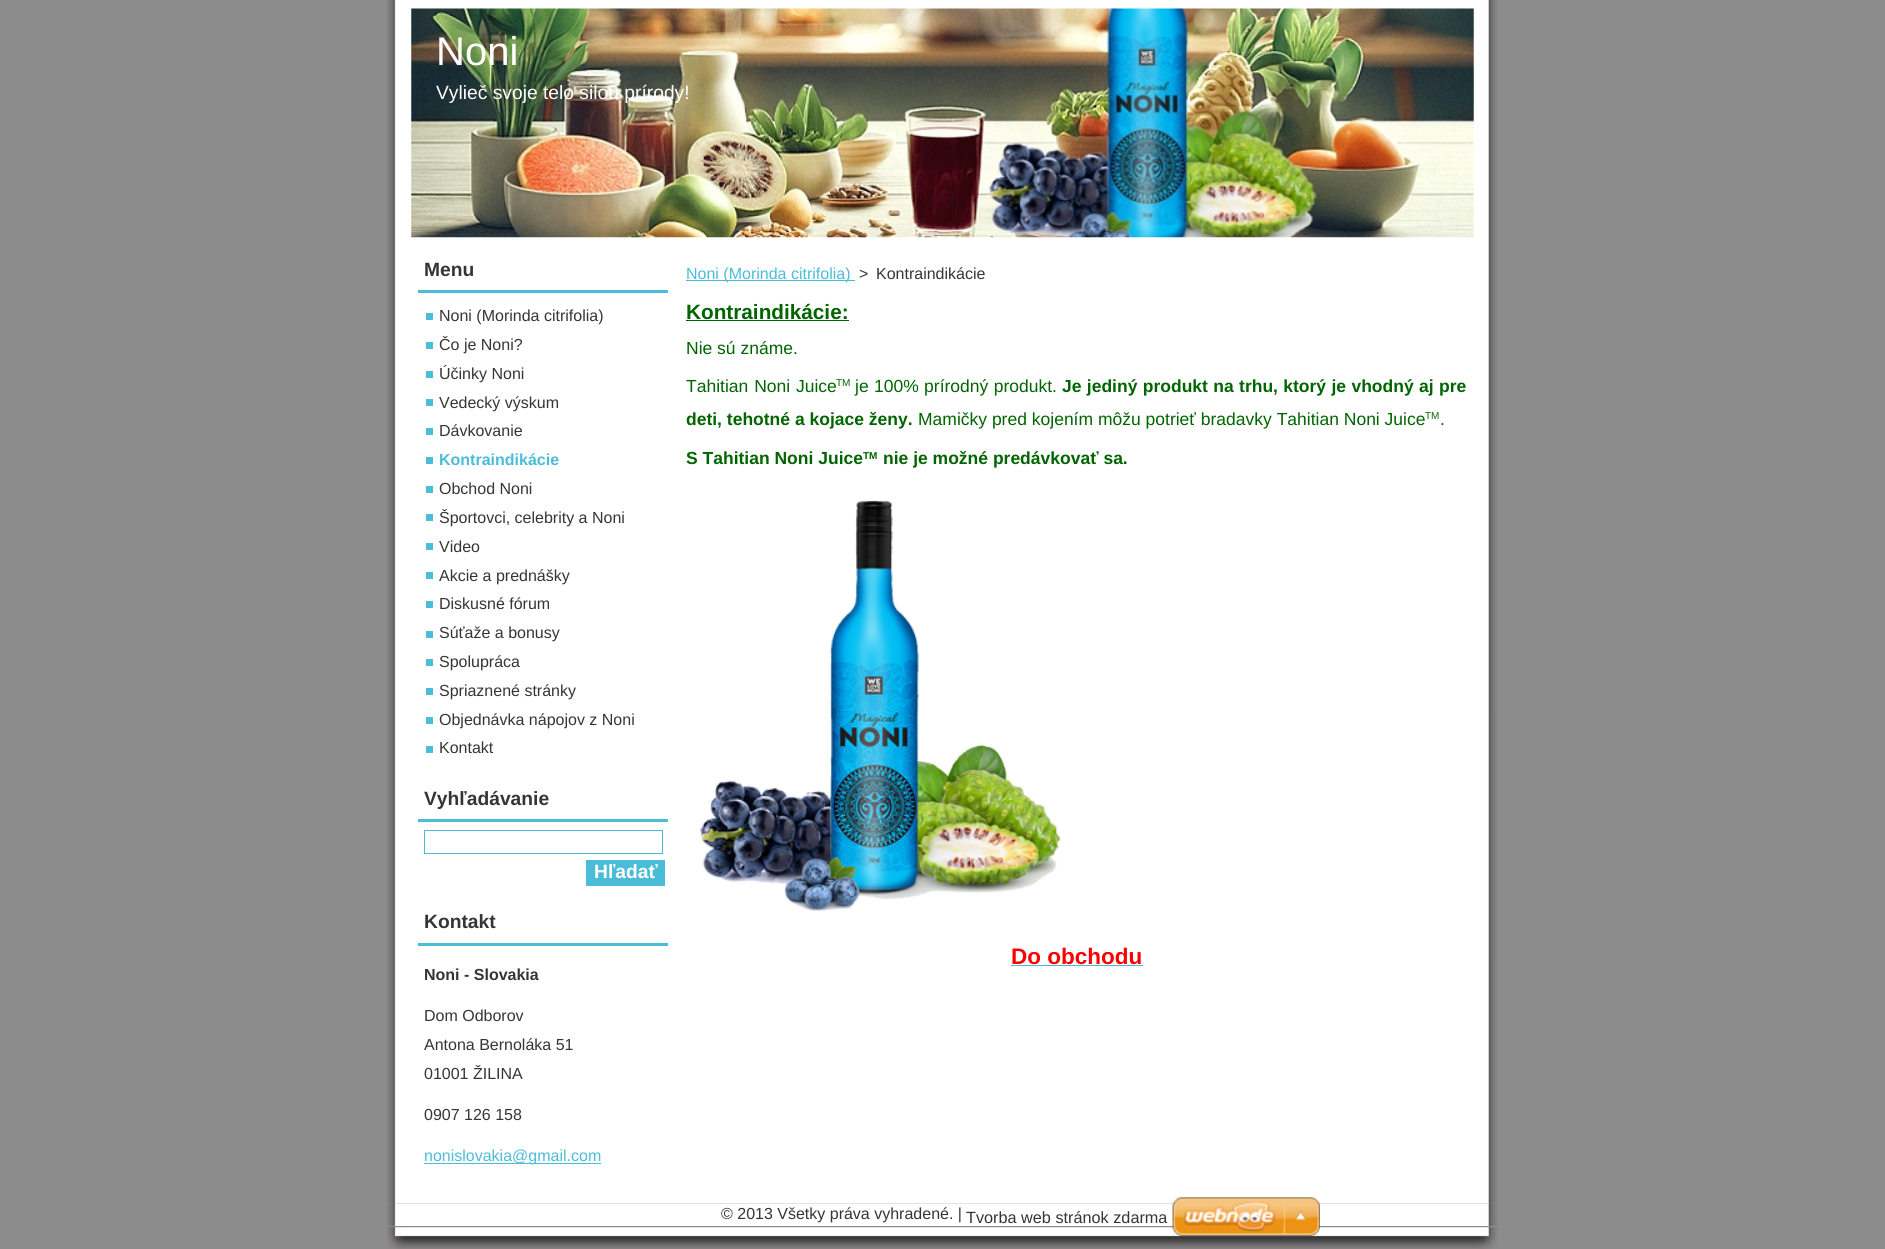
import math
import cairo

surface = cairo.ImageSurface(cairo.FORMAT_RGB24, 1885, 1249)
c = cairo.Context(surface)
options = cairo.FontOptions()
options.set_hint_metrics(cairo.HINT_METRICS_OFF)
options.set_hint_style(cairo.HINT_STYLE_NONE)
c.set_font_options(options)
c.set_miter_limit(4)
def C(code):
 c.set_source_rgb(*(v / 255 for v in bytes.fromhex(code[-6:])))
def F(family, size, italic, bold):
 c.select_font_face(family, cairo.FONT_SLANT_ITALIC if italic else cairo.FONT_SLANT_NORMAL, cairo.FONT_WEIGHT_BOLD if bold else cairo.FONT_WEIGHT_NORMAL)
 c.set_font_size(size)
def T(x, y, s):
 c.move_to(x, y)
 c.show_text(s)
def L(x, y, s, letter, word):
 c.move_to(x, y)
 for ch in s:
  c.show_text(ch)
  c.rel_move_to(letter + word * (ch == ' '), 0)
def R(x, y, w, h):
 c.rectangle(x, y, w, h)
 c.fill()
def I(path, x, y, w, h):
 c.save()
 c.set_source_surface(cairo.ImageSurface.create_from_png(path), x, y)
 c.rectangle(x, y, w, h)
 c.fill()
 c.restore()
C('8c8c8c')
c.paint()
I('1.png',386,0,1112,1164)
I('2.png',386,1164,1112,40)
I('3.png',411,8,1063,230)
F('Liberation Sans',40,0,0)
C('ffffff')
T(436,65,'Noni')
F('Liberation Sans',19.25,0,0)
T(436,99,'Vylieč svoje telo silou prírody!')
C('4bbcd8')
R(418,290,250,3)
F('Liberation Sans',19.25,0,1)
C('353535')
T(424,276,'Menu')
F('Liberation Sans',16,0,0)
T(439,321,'Noni (Morinda citrifolia)')
C('4bbdd8')
R(426,313,7,7)
C('353535')
T(439,350,'Čo je Noni?')
C('4bbdd8')
R(426,342,7,7)
C('353535')
T(439,379,'Účinky Noni')
C('4bbdd8')
R(426,371,7,7)
C('353535')
T(439,408,'Vedecký výskum')
C('4bbdd8')
R(426,399,7,7)
C('353535')
T(439,436,'Dávkovanie')
C('4bbdd8')
R(426,428,7,7)
F('Liberation Sans',16,0,1)
C('4bbcd8')
T(439,465,'Kontraindikácie')
C('4bbdd8')
R(426,457,7,7)
F('Liberation Sans',16,0,0)
C('353535')
T(439,494,'Obchod Noni')
C('4bbdd8')
R(426,486,7,7)
C('353535')
T(439,523,'Športovci, celebrity a Noni')
C('4bbdd8')
R(426,514,7,7)
C('353535')
T(439,552,'Video')
C('4bbdd8')
R(426,543,7,7)
C('353535')
T(439,581,'Akcie a prednášky')
C('4bbdd8')
R(426,572,7,7)
C('353535')
T(439,609,'Diskusné fórum')
C('4bbdd8')
R(426,601,7,7)
C('353535')
T(439,638,'Súťaže a bonusy')
C('4bbdd8')
R(426,631,7,7)
C('353535')
T(439,667,'Spolupráca')
C('4bbdd8')
R(426,659,7,7)
C('353535')
T(439,696,'Spriaznené stránky')
C('4bbdd8')
R(426,688,7,7)
C('353535')
T(439,725,'Objednávka nápojov z Noni')
C('4bbdd8')
R(426,717,7,7)
C('353535')
T(439,753,'Kontakt')
C('4bbdd8')
R(426,746,7,7)
C('4bbcd8')
R(418,819,250,3)
F('Liberation Sans',19.25,0,1)
C('353535')
T(424,805,'Vyhľadávanie')
c.rectangle(424.5,830.5,238,23)
C('4bbcd8')
c.set_line_width(1)
c.stroke()
R(586,860,79,26)
C('ffffff')
T(594,878,'Hľadať')
C('4bbcd8')
R(418,943,250,3)
C('353535')
T(424,928,'Kontakt')
F('Liberation Sans',16,0,1)
T(424,980,'Noni - Slovakia')
F('Liberation Sans',16,0,0)
T(424,1021,'Dom Odborov')
T(424,1050,'Antona Bernoláka 51')
T(424,1079,'01001 ŽILINA')
T(424,1120,'0907 126 158')
C('4bbcd8')
R(424,1163,135,1)
T(424,1161,'nonislovakia@gmail.com')
R(559,1163,42,1)
R(686,280,169,1)
T(686,279,'Noni (Morinda citrifolia)')
C('353535')
T(859,279,'>')
T(876,279,'Kontraindikácie')
F('Liberation Sans',20.75,0,1)
C('006400')
T(686,319,'Kontraindikácie:')
R(686,320,163,1)
F('Liberation Sans',17.5,0,0)
T(686,354,'Nie sú známe.')
L(686,392,'Tahitian Noni Juice',0,1)
F('Liberation Sans',10,0,0)
T(836,386,'TM')
F('Liberation Sans',17.5,0,0)
L(855,392,'je 100% prírodný produkt.',0,.5)
F('Liberation Sans',17.5,0,1)
L(1062,392,'Je jediný produkt na trhu, ktorý je vhodný aj pre',0,.5)
T(686,425,'deti, tehotné a kojace ženy.')
F('Liberation Sans',17.5,0,0)
T(918,425,'Mamičky pred kojením môžu potrieť bradavky Tahitian Noni Juice')
F('Liberation Sans',10,0,0)
T(1425,419,'TM')
F('Liberation Sans',17.5,0,0)
T(1440,425,'.')
F('Liberation Sans',17.5,0,1)
T(686,464,'S Tahitian Noni Juice')
F('Liberation Sans',10,0,1)
T(863,459,'TM')
F('Liberation Sans',17.5,0,1)
T(883,464,'nie je možné predávkovať sa.')
I('4.png',700,500,361,412)
F('Liberation Sans',22.5,0,1)
C('ff0000')
T(1011,964,'Do obchodu')
C('4bbcd8')
R(1011,965,132,1)
I('5.png',386,1227,1112,22)
I('6.png',386,1203,1112,23)
F('Liberation Sans',16,0,0)
C('353535')
T(721,1219,'© 2013 Všetky práva vyhradené. |')
F('Liberation Sans',16.25,0,0)
T(966,1223,'Tvorba web stránok zdarma')
I('7.png',1172,1197,148,39)
surface.write_to_png('o.png')
